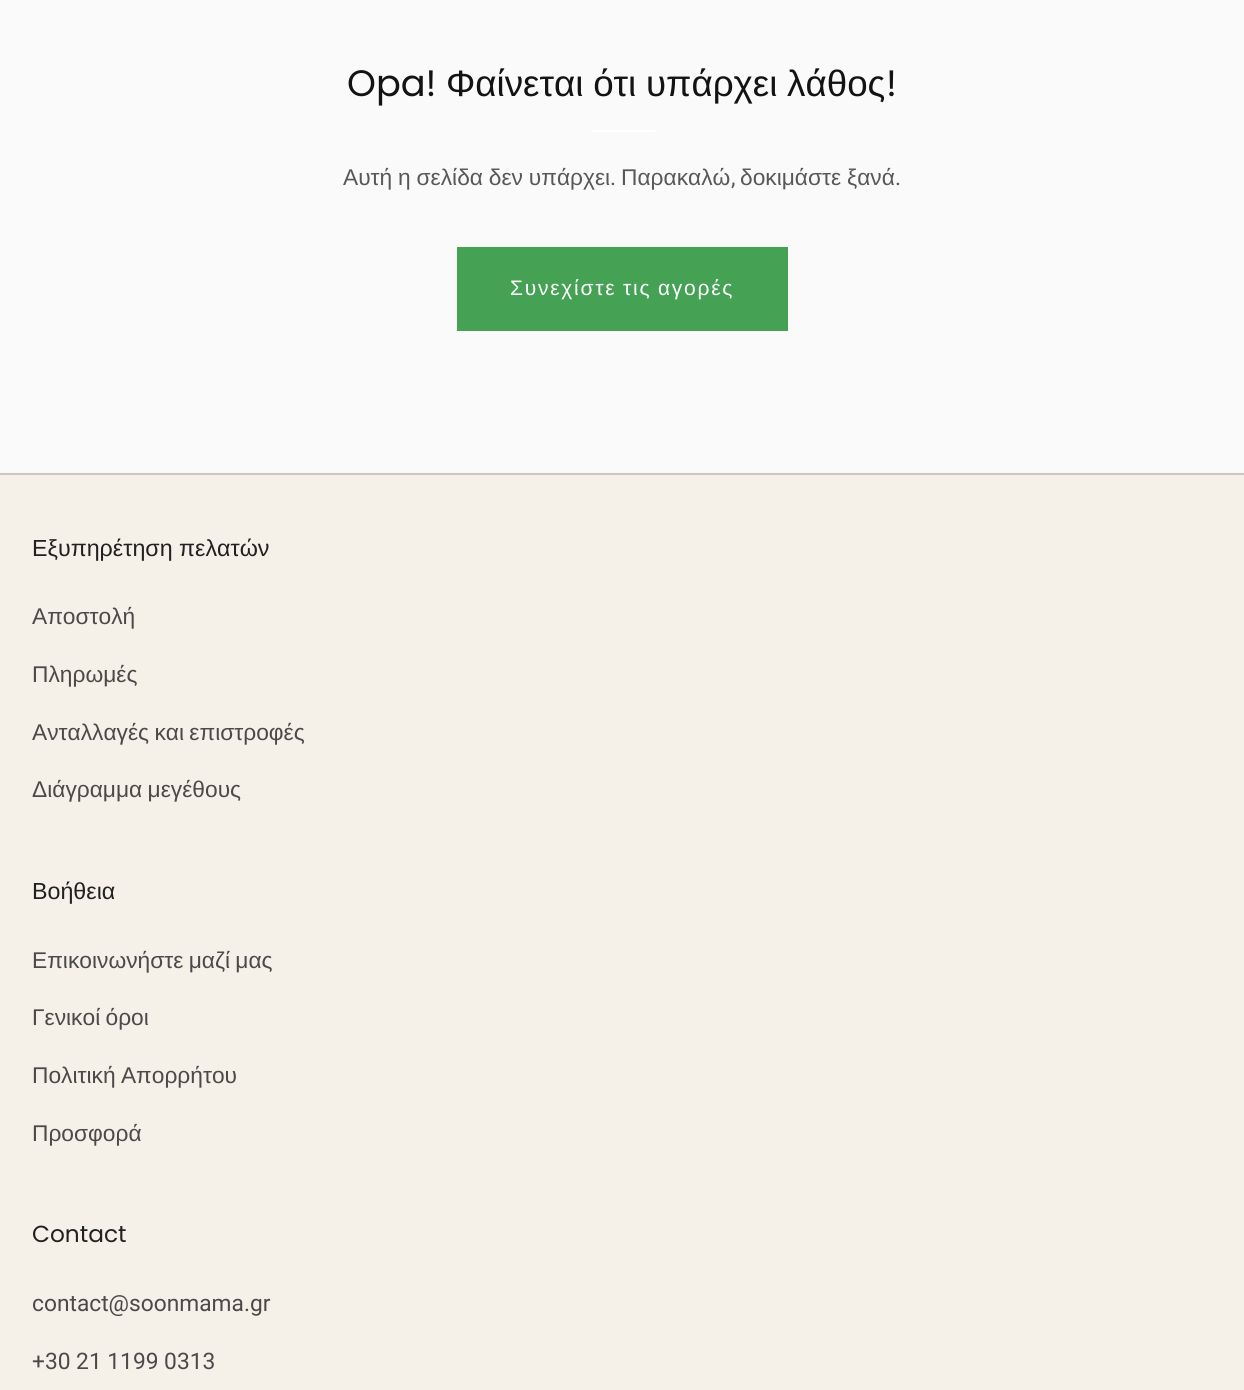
import math
import cairo

surface = cairo.ImageSurface(cairo.FORMAT_RGB24, 1244, 1390)
c = cairo.Context(surface)
options = cairo.FontOptions()
options.set_hint_metrics(cairo.HINT_METRICS_OFF)
options.set_hint_style(cairo.HINT_STYLE_NONE)
c.set_font_options(options)
c.set_miter_limit(4)
def C(code):
 c.set_source_rgb(*(v / 255 for v in bytes.fromhex(code[-6:])))
def F(family, size, italic, bold):
 c.select_font_face(family, cairo.FONT_SLANT_ITALIC if italic else cairo.FONT_SLANT_NORMAL, cairo.FONT_WEIGHT_BOLD if bold else cairo.FONT_WEIGHT_NORMAL)
 c.set_font_size(size)
def T(x, y, s):
 c.move_to(x, y)
 c.show_text(s)
def L(x, y, s, letter, word):
 c.move_to(x, y)
 for ch in s:
  c.show_text(ch)
  c.rel_move_to(letter + word * (ch == ' '), 0)
def R(x, y, w, h):
 c.rectangle(x, y, w, h)
 c.fill()
C('fafafa')
c.paint()
F('Poppins',36.75,0,0)
C('131313')
T(347,96,'Opa!')
F('Liberation Sans',36.75,0,0)
L(446,96,'Φαίνεται ότι υπάρχει λάθος',0,-.5)
F('Poppins',36.75,0,0)
T(886,96,'!')
C('ffffff')
R(592,130,63,2)
F('Liberation Sans',22.75,0,0)
C('585858')
L(343,185,'Αυτή η σελίδα δεν υπάρχει',0,-.5)
F('Roboto',22.75,0,0)
T(610,185,'.')
F('Liberation Sans',22.75,0,0)
T(621,185,'Παρακαλώ')
F('Roboto',22.75,0,0)
T(731,185,',')
F('Liberation Sans',22.75,0,0)
L(740,185,'δοκιμάστε ξανά',0,-.5)
F('Roboto',22.75,0,0)
T(895,185,'.')
C('45a153')
R(457,247,331,84)
F('Liberation Sans',21,0,0)
C('ffffff')
L(510,295,'Συνεχίστε τις αγορές',1.75,-1)
C('f5f0e8')
R(0,475,1244,915)
C('cbc7c0')
R(0,473,1244,2)
F('Liberation Sans',23.25,0,0)
C('212121')
T(32,556,'Εξυπηρέτηση πελατών')
F('Liberation Sans',22.75,0,0)
C('4b4a49')
T(32,624,'Αποστολή')
T(32,682,'Πληρωμές')
L(32,740,'Ανταλλαγές και επιστροφές',0,-1)
L(32,797,'Διάγραμμα μεγέθους',0,-1)
F('Liberation Sans',23.25,0,0)
C('212121')
T(32,899,'Βοήθεια')
F('Liberation Sans',22.75,0,0)
C('4b4a49')
L(32,968,'Επικοινωνήστε μαζί μας',0,-1)
L(32,1025,'Γενικοί όροι',0,-1)
L(32,1083,'Πολιτική Απορρήτου',0,-1)
T(32,1141,'Προσφορά')
F('Poppins',23.25,0,0)
C('212121')
T(32,1242,'Contact')
F('Roboto',22.75,0,0)
C('4b4a49')
T(32,1311,'contact@soonmama.gr')
T(32,1369,'+30 21 1199 0313')
surface.write_to_png('o.png')
